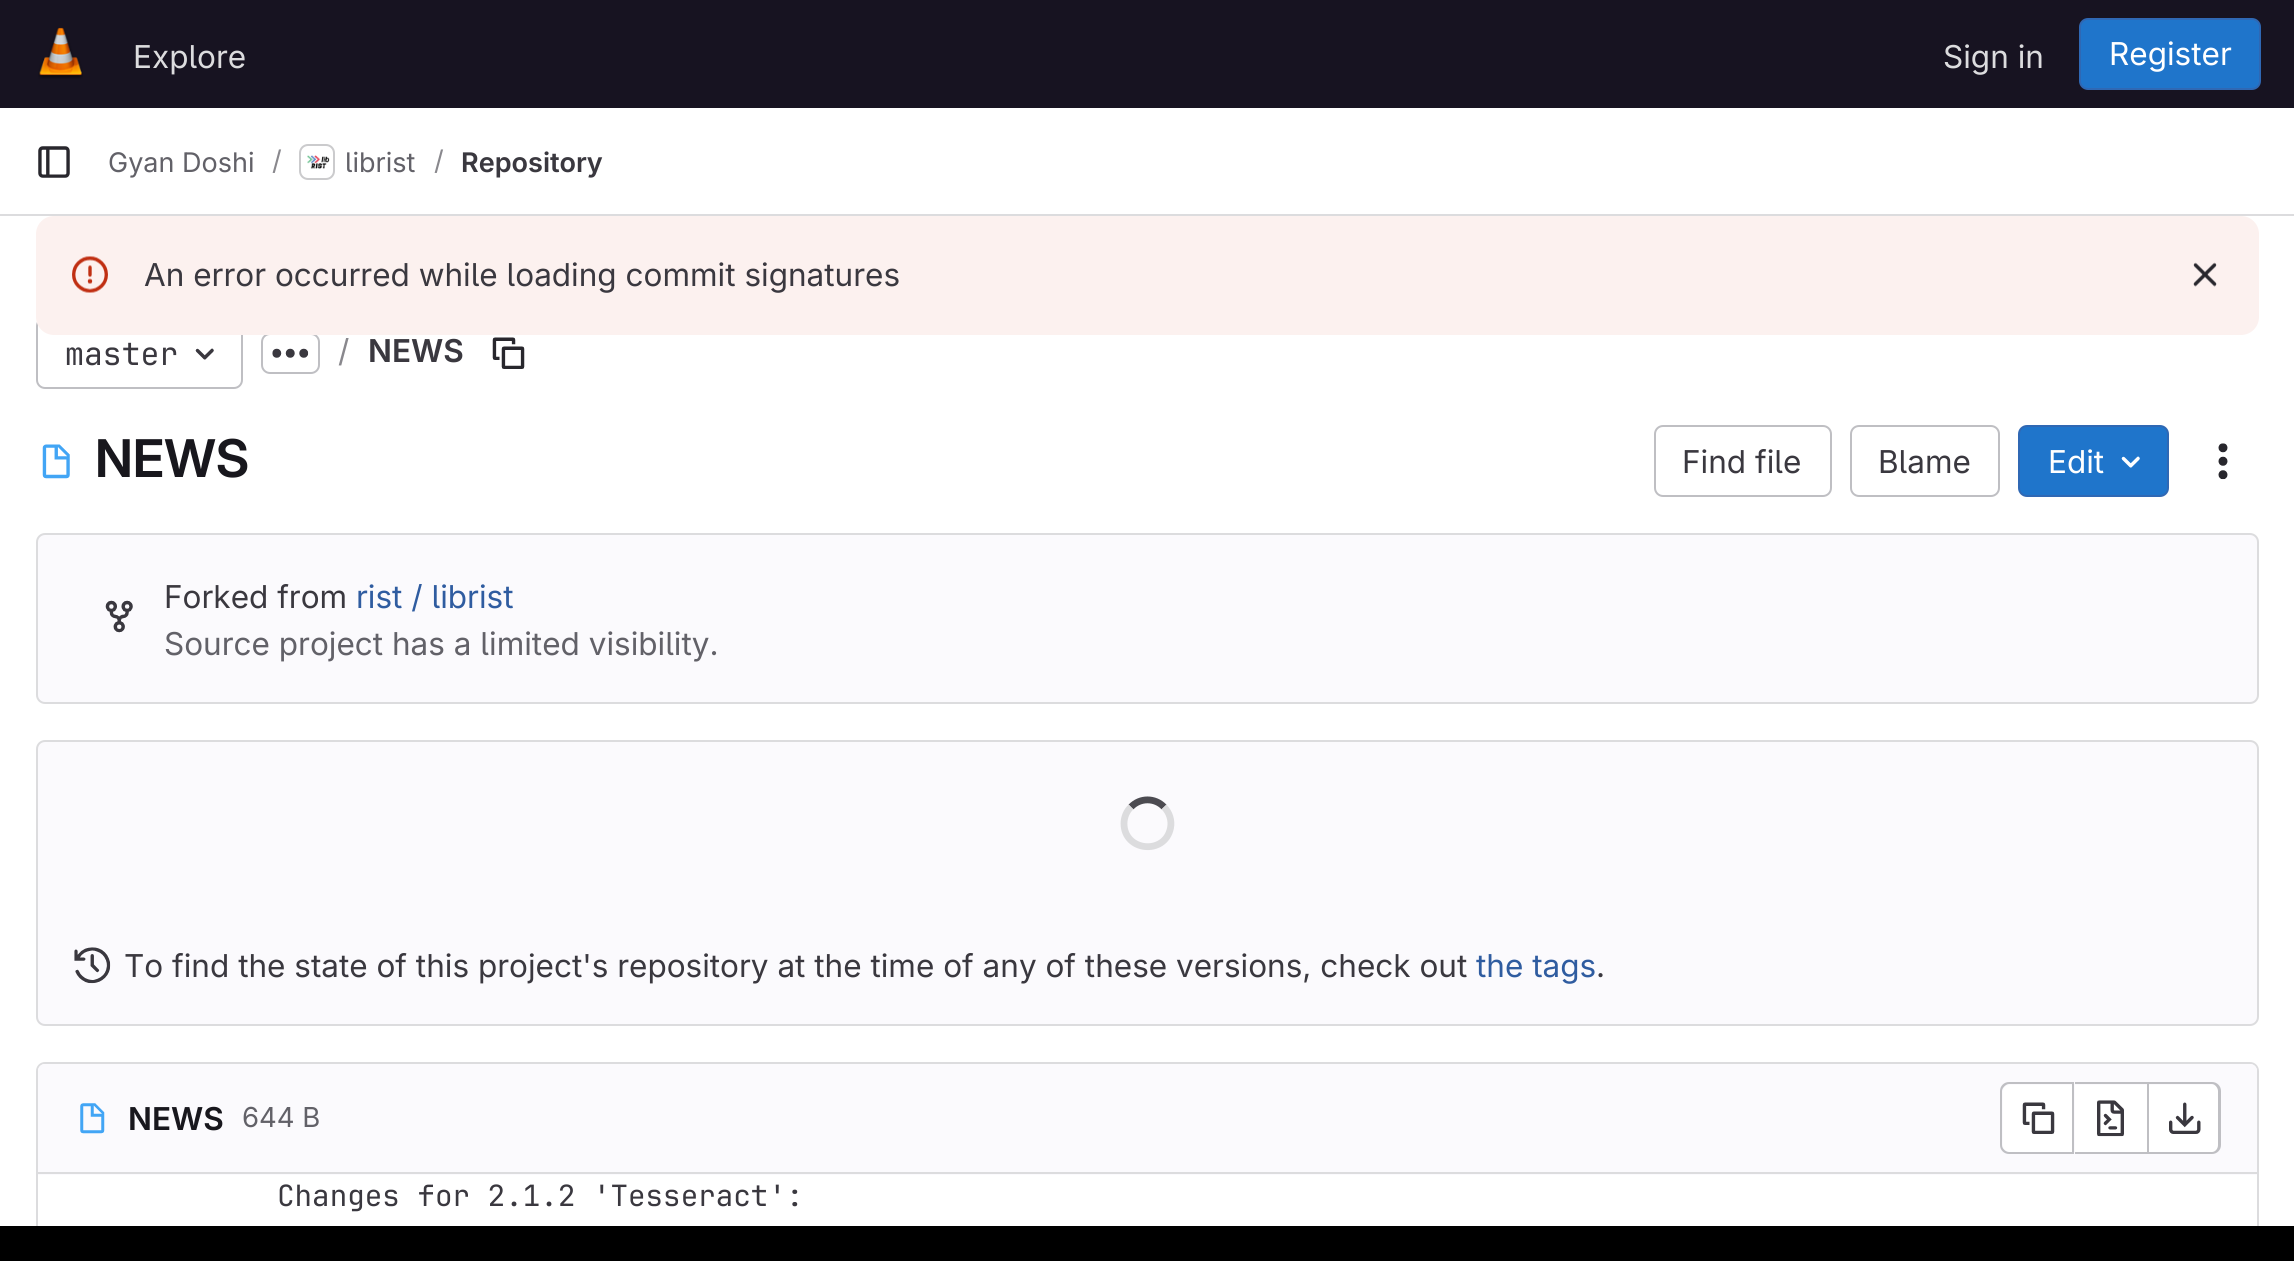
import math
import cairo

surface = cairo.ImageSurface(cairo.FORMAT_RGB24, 2294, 1261)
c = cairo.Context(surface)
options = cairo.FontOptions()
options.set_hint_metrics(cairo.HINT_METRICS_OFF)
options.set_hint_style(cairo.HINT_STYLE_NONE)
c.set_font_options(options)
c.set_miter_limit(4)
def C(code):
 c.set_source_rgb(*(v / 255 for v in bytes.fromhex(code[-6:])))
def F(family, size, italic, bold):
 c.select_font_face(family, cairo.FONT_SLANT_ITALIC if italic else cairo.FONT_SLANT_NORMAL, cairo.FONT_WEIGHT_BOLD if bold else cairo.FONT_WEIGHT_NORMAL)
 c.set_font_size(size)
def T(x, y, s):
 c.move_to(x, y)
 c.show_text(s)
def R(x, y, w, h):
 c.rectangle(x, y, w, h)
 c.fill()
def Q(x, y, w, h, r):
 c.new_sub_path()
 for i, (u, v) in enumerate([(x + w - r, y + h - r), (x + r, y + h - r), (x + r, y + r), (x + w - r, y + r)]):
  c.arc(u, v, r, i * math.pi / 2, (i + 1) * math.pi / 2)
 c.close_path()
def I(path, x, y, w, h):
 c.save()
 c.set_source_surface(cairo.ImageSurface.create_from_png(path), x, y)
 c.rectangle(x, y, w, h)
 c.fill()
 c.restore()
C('ffffff')
c.paint()
C('171321')
R(0,0,2294,108)
I('1.png',38,27,45,52)
F('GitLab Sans',31.5,0,0)
C('dcdcde')
T(133,68,'Explore')
T(1943,68,'Sign in')
C('1f75cb')
Q(2080,19,180,70,8)
c.fill_preserve()
C('2f68b4')
c.stroke()
C('ffffff')
T(2109,65,'Register')
C('dcdcde')
R(0,214,2294,2)
I('2.png',38,146,32,32)
F('GitLab Sans',27,0,0)
C('626168')
T(108,172,'Gyan Doshi')
C('89888d')
T(272,170,'/')
Q(300,145,34,34,8)
C('dcdcde')
c.stroke()
I('3.png',307,155,23,14)
Q(300,145,34,34,8)
c.set_source_rgba(0.02,0.02,0.024,0.08)
c.stroke()
C('626168')
T(345,172,'librist')
C('89888d')
T(434,170,'/')
F('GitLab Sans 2 SemiBold',27,0,0)
C('3a383f')
T(461,172,'Repository')
Q(37,318,205,70,8)
C('bfbfc3')
c.stroke()
Q(262,334,57,39,8)
c.stroke()
C('fcf1ef')
Q(36,216,2223,119,18)
c.fill()
I('4.png',72,256,36,37)
F('GitLab Sans',31.5,0,0)
C('3a383f')
T(144,286,'An error occurred while loading commit signatures')
I('5.png',2193,262,24,25)
F('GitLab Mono',31.5,0,0)
T(65,365,'master')
I('6.png',195,348,19,12)
I('7.png',272,348,37,10)
F('GitLab Sans',31.5,0,0)
C('89888d')
T(338,362,'/')
F('GitLab Sans 2 SemiBold',31.5,0,0)
C('3a383f')
T(368,362,'NEWS')
I('8.png',492,337,33,32)
I('9.png',42,444,28,35)
F('GitLab Sans SemiBold',52,0,0)
C('18171d')
T(95,477,'NEWS')
Q(1655,426,176,70,8)
C('bfbfc3')
c.stroke()
F('GitLab Sans',31.5,0,0)
C('3a383f')
T(1682,473,'Find file')
Q(1851,426,148,70,8)
C('bfbfc3')
c.stroke()
C('3a383f')
T(1878,473,'Blame')
C('1f75cb')
Q(2019,426,149,70,8)
c.fill_preserve()
C('2f68b4')
c.stroke()
C('ffffff')
T(2048,473,'Edit')
I('10.png',2121,456,19,12)
I('11.png',2218,443,10,37)
C('fbfafd')
Q(37,534,2221,169,8)
c.fill_preserve()
C('dcdcde')
c.stroke()
I('12.png',105,600,28,33)
C('3a383f')
T(164,608,'Forked from')
C('2f5ca0')
T(356,608,'rist / librist')
C('626168')
T(164,655,'Source project has a limited visibility.')
C('fbfafd')
Q(37,741,2221,284,8)
c.fill_preserve()
C('dcdcde')
c.stroke()
c.new_path()
c.move_to(1131,807)
c.curve_to(1140,797.5,1155,797.5,1164,807)
C('4c4b51')
c.set_line_width(6.8)
c.stroke()
c.new_path()
c.move_to(1164,807)
c.curve_to(1169.5,812.5,1172,820.5,1170.5,828)
c.curve_to(1165,855.5,1124,851.5,1124,823.5)
c.curve_to(1124,817.5,1126.5,811,1131,807)
C('dcdcde')
c.stroke()
I('13.png',74,947,37,37)
C('3a383f')
T(124,977,'To find the state of this project\'s repository at the time of any of these versions, check out')
C('2f5ca0')
T(1476,977,'the tags')
C('3a383f')
T(1596,977,'.')
Q(37,1063,2221,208,8)
C('dcdcde')
c.set_line_width(2)
c.stroke()
C('fbfafd')
c.new_path()
c.move_to(45,1064)
c.line_to(2250,1064)
c.curve_to(2254,1064,2257,1067,2257,1071)
c.line_to(2257,1175)
c.line_to(38,1175)
c.line_to(38,1071)
c.curve_to(38,1067,41,1064,45,1064)
c.close_path()
c.fill()
C('dcdcde')
R(38,1172,2219,2)
I('14.png',80,1103,25,31)
F('GitLab Sans 2 SemiBold',31.5,0,0)
C('18171d')
T(128,1130,'NEWS')
F('GitLab Sans',27.5,0,0)
C('626168')
T(242,1127,'644 B')
C('ffffff')
c.new_path()
c.move_to(2010,1085)
c.line_to(2072,1085)
c.line_to(2072,1152)
c.line_to(2010,1152)
c.curve_to(2006,1152,2003,1149,2003,1145)
c.line_to(2003,1092)
c.curve_to(2003,1088,2006,1085,2010,1085)
c.close_path()
c.fill()
C('bfbfc3')
c.set_fill_rule(cairo.FILL_RULE_EVEN_ODD)
c.new_path()
c.move_to(2009,1082)
c.line_to(2072,1082)
c.line_to(2072,1154)
c.line_to(2009,1154)
c.curve_to(2004,1154,2000,1150,2000,1145)
c.line_to(2000,1091)
c.curve_to(2000,1086,2004,1082,2009,1082)
c.close_path()
c.move_to(2009,1084)
c.line_to(2072,1084)
c.line_to(2072,1152)
c.line_to(2009,1152)
c.curve_to(2006,1152,2002,1149,2002,1145)
c.line_to(2002,1091)
c.curve_to(2002,1088,2006,1084,2009,1084)
c.close_path()
c.fill()
I('15.png',2022,1102,33,32)
C('ffffff')
R(2075,1085,72,67)
C('bfbfc3')
R(2075,1082,72,2)
R(2075,1152,72,2)
R(2072,1082,2,72)
I('16.png',2097,1100,27,37)
C('ffffff')
c.new_path()
c.move_to(2149,1085)
c.line_to(2212,1085)
c.curve_to(2216,1085,2219,1088,2219,1092)
c.line_to(2219,1145)
c.curve_to(2219,1149,2216,1152,2212,1152)
c.line_to(2149,1152)
c.close_path()
c.fill()
C('bfbfc3')
c.new_path()
c.move_to(2149,1082)
c.line_to(2212,1082)
c.curve_to(2217,1082,2221,1086,2221,1091)
c.line_to(2221,1145)
c.curve_to(2221,1150,2217,1154,2212,1154)
c.line_to(2149,1154)
c.close_path()
c.move_to(2149,1084)
c.line_to(2212,1084)
c.curve_to(2215,1084,2218,1088,2218,1091)
c.line_to(2218,1145)
c.curve_to(2218,1149,2215,1152,2212,1152)
c.line_to(2149,1152)
c.close_path()
c.fill()
R(2147,1082,2,72)
I('17.png',2169,1102,32,32)
F('GitLab Mono',29.25,0,0)
C('3a383f')
T(277,1206,'Changes for 2.1.2 \'Tesseract\':')
C('000000')
R(0,1226,2294,35)
surface.write_to_png('o.png')
